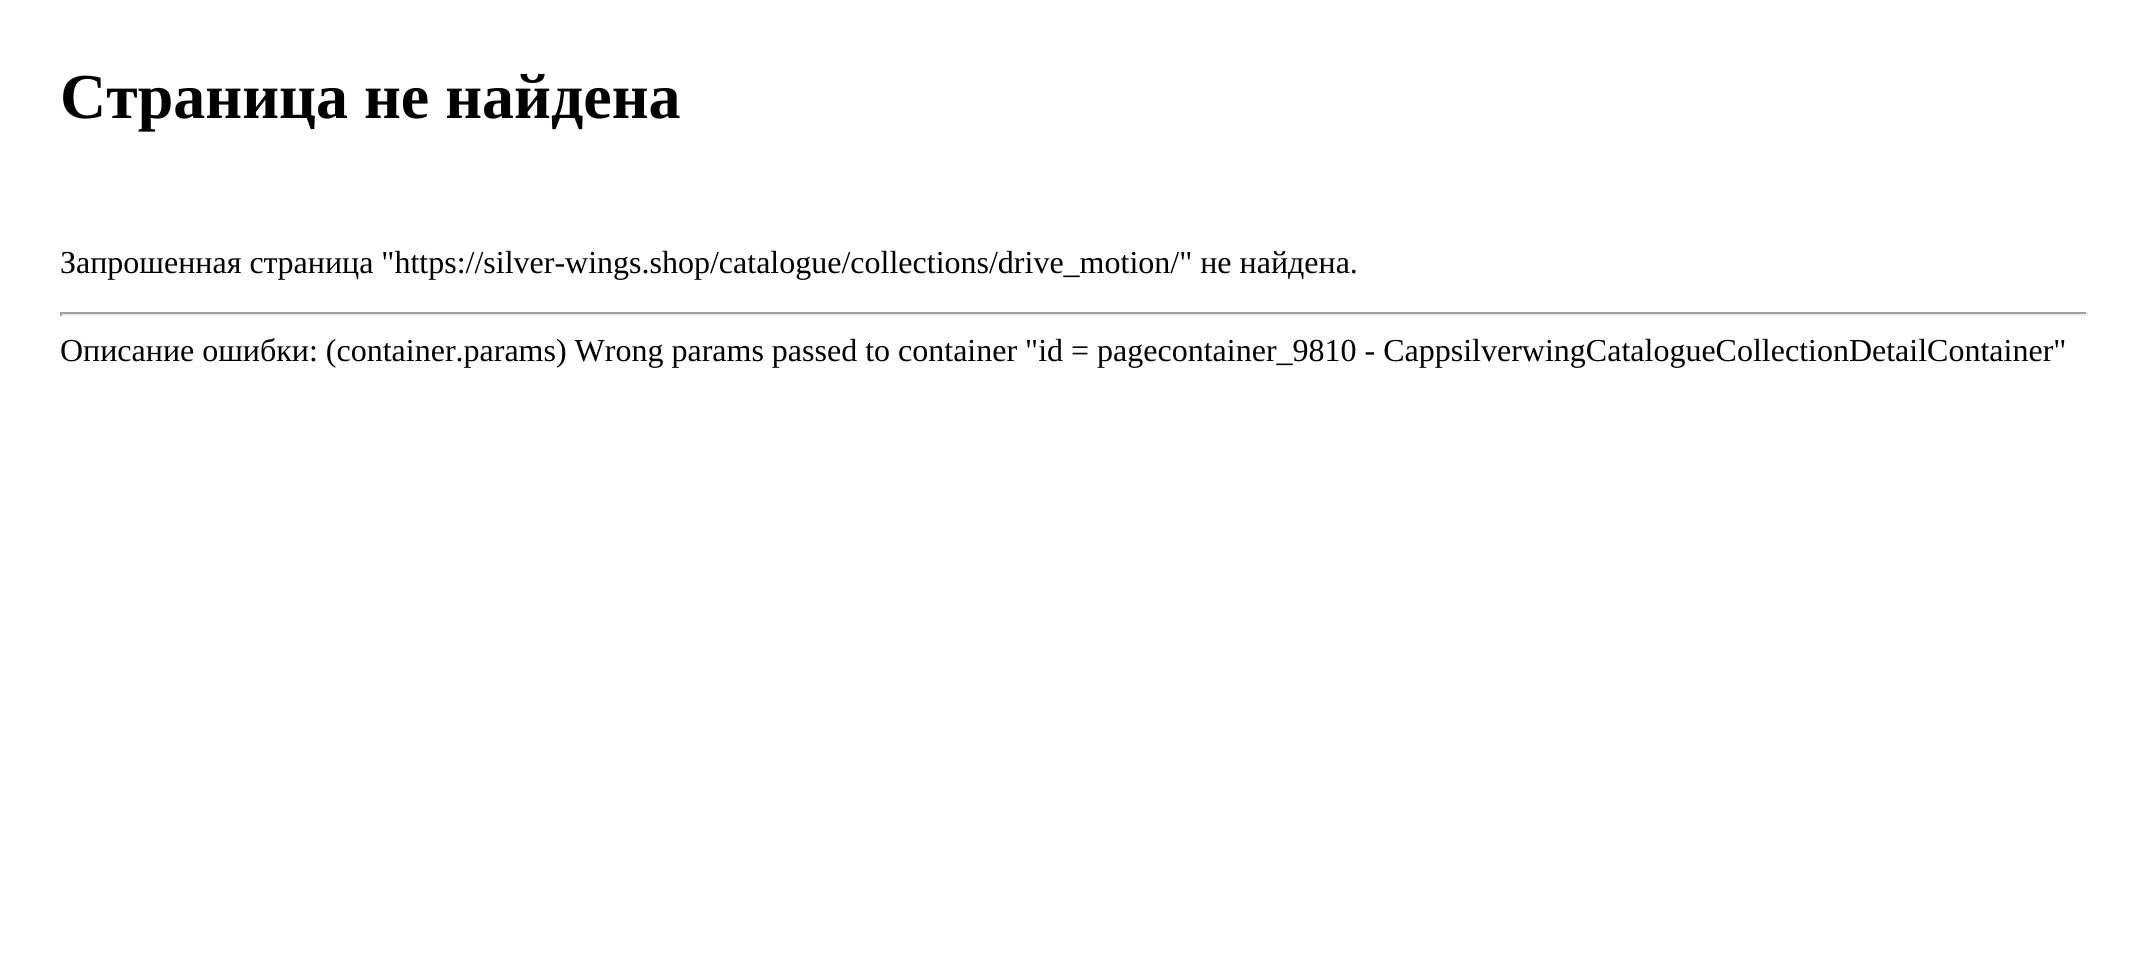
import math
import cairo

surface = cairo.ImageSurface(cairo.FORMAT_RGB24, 2147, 955)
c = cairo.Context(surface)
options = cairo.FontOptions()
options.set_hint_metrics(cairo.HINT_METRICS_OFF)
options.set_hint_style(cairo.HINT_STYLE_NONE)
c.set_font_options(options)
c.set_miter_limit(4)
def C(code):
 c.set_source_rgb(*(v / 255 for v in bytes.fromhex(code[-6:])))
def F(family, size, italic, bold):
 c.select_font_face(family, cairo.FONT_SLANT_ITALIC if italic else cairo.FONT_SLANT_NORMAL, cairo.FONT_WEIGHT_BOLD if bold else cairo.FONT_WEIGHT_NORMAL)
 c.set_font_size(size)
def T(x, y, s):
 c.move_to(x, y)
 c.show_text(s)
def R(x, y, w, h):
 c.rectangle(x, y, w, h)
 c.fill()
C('ffffff')
c.paint()
F('Liberation Serif',64,0,1)
C('000000')
T(60,118,'Страница не найдена')
F('Liberation Serif',32,0,0)
T(60,273,'Запрошенная страница "https://silver-wings.shop/catalogue/collections/drive_motion/" не найдена.')
C('9f9f9f')
R(60,312,2028,2)
C('eeeeee')
R(2086,312,2,4)
R(60,314,2028,2)
C('9f9f9f')
R(60,312,2,4)
C('000000')
T(60,361,'Описание ошибки: (container.params) Wrong params passed to container "id = pagecontainer_9810 - CappsilverwingCatalogueCollectionDetailContainer"')
surface.write_to_png('o.png')
